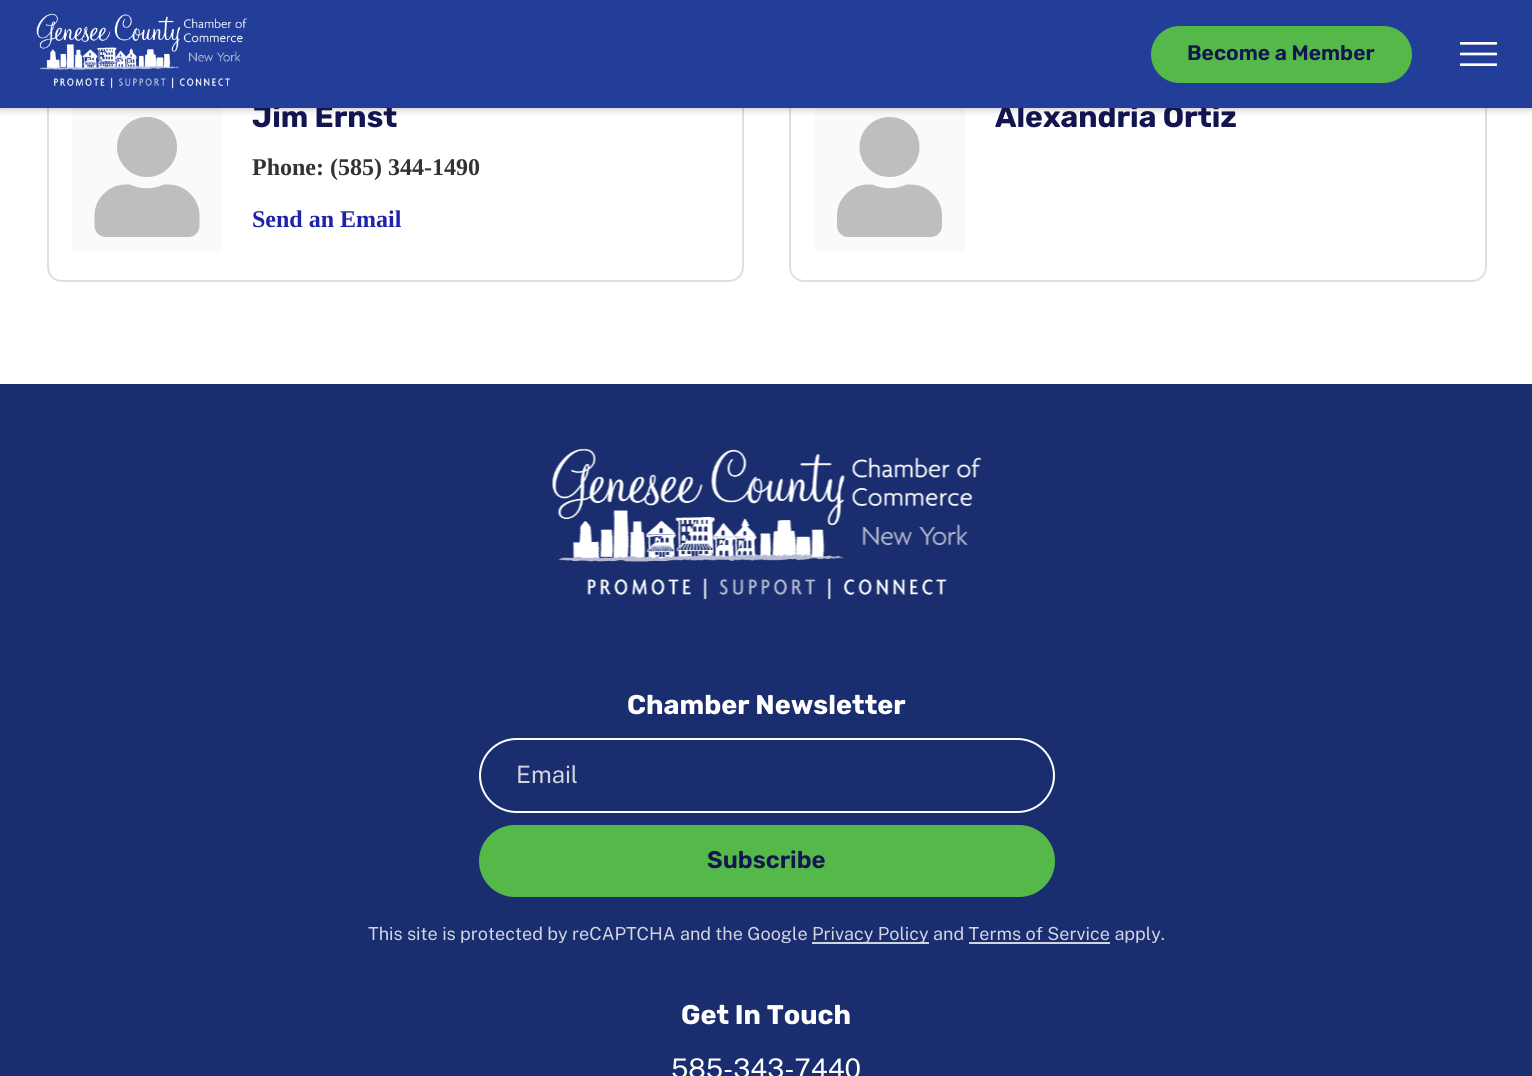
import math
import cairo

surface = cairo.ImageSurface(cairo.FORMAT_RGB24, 1532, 1076)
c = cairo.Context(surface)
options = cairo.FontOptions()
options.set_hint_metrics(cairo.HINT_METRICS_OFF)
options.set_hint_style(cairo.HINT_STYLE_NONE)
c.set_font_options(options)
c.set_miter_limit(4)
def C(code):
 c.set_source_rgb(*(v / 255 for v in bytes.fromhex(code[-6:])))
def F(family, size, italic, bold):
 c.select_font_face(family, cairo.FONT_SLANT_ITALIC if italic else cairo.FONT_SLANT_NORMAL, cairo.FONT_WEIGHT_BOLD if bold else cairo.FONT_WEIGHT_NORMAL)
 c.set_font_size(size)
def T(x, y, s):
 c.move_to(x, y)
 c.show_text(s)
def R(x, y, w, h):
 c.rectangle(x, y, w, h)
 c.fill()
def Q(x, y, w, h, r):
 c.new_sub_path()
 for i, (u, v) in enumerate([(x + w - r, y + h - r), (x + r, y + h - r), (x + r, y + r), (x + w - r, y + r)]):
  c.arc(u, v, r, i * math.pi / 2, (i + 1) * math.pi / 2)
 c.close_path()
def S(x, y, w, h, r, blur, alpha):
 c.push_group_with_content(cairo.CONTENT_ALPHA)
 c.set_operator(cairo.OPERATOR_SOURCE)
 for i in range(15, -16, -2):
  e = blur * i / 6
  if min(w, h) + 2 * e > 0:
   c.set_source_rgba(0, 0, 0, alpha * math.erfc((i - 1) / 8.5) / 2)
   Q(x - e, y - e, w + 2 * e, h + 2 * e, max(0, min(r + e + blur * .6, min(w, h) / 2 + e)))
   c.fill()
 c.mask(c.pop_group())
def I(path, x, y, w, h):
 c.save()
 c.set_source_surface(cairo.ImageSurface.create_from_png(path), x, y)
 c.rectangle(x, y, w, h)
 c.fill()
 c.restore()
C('ffffff')
c.paint()
Q(48,78,695,203,14)
C('dfdfdf')
c.stroke()
C('fafafa')
R(72,108,150,144)
I('3.png',94,117,106,120)
Q(790,78,696,203,14)
C('dfdfdf')
c.stroke()
C('fafafa')
R(815,108,150,144)
I('4.png',837,117,105,120)
C('000000')
S(0,0,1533,108,0,4.5,.3)
F('Rubik',30,0,1)
C('131551')
T(252,127,'Jim Ernst')
T(995,127,'Alexandria Ortiz')
C('233e99')
R(0,0,1532,108)
I('1.png',36,13,211,76)
C('54b948')
Q(1151,26,261,57,28.5)
c.fill()
F('Rubik SemiBold',21,0,0)
C('131551')
T(1187,60,'Become a Member')
I('2.png',1460,42,37,24)
F('Liberation Serif',24,0,1)
C('333333')
T(252,175,'Phone: (585) 344-1490')
C('1e22aa')
T(252,227,'Send an Email')
C('1a2d6f')
R(0,384,1532,692)
I('5.png',552,448,430,152)
F('Rubik',27,0,1)
C('ffffff')
T(627,714,'Chamber Newsletter')
Q(480,739,574,73,36.5)
c.stroke()
F('Public Sans',24,0,0)
C('d1d5e2')
T(516,783,'Email')
C('54b948')
Q(479,825,576,72,36)
c.fill()
F('Rubik SemiBold',24,0,0)
C('131551')
T(707,868,'Subscribe')
F('Public Sans',18,0,0)
C('d1d5e2')
T(368,940,'This site is protected by reCAPTCHA and the Google')
R(812,942,117,2)
T(812,940,'Privacy Policy and Terms of Service apply.')
R(969,942,141,2)
F('Rubik',27,0,1)
C('ffffff')
T(681,1024,'Get In Touch')
F('Public Sans',27,0,0)
T(671,1078,'585-343-7440')
surface.write_to_png('o.png')
